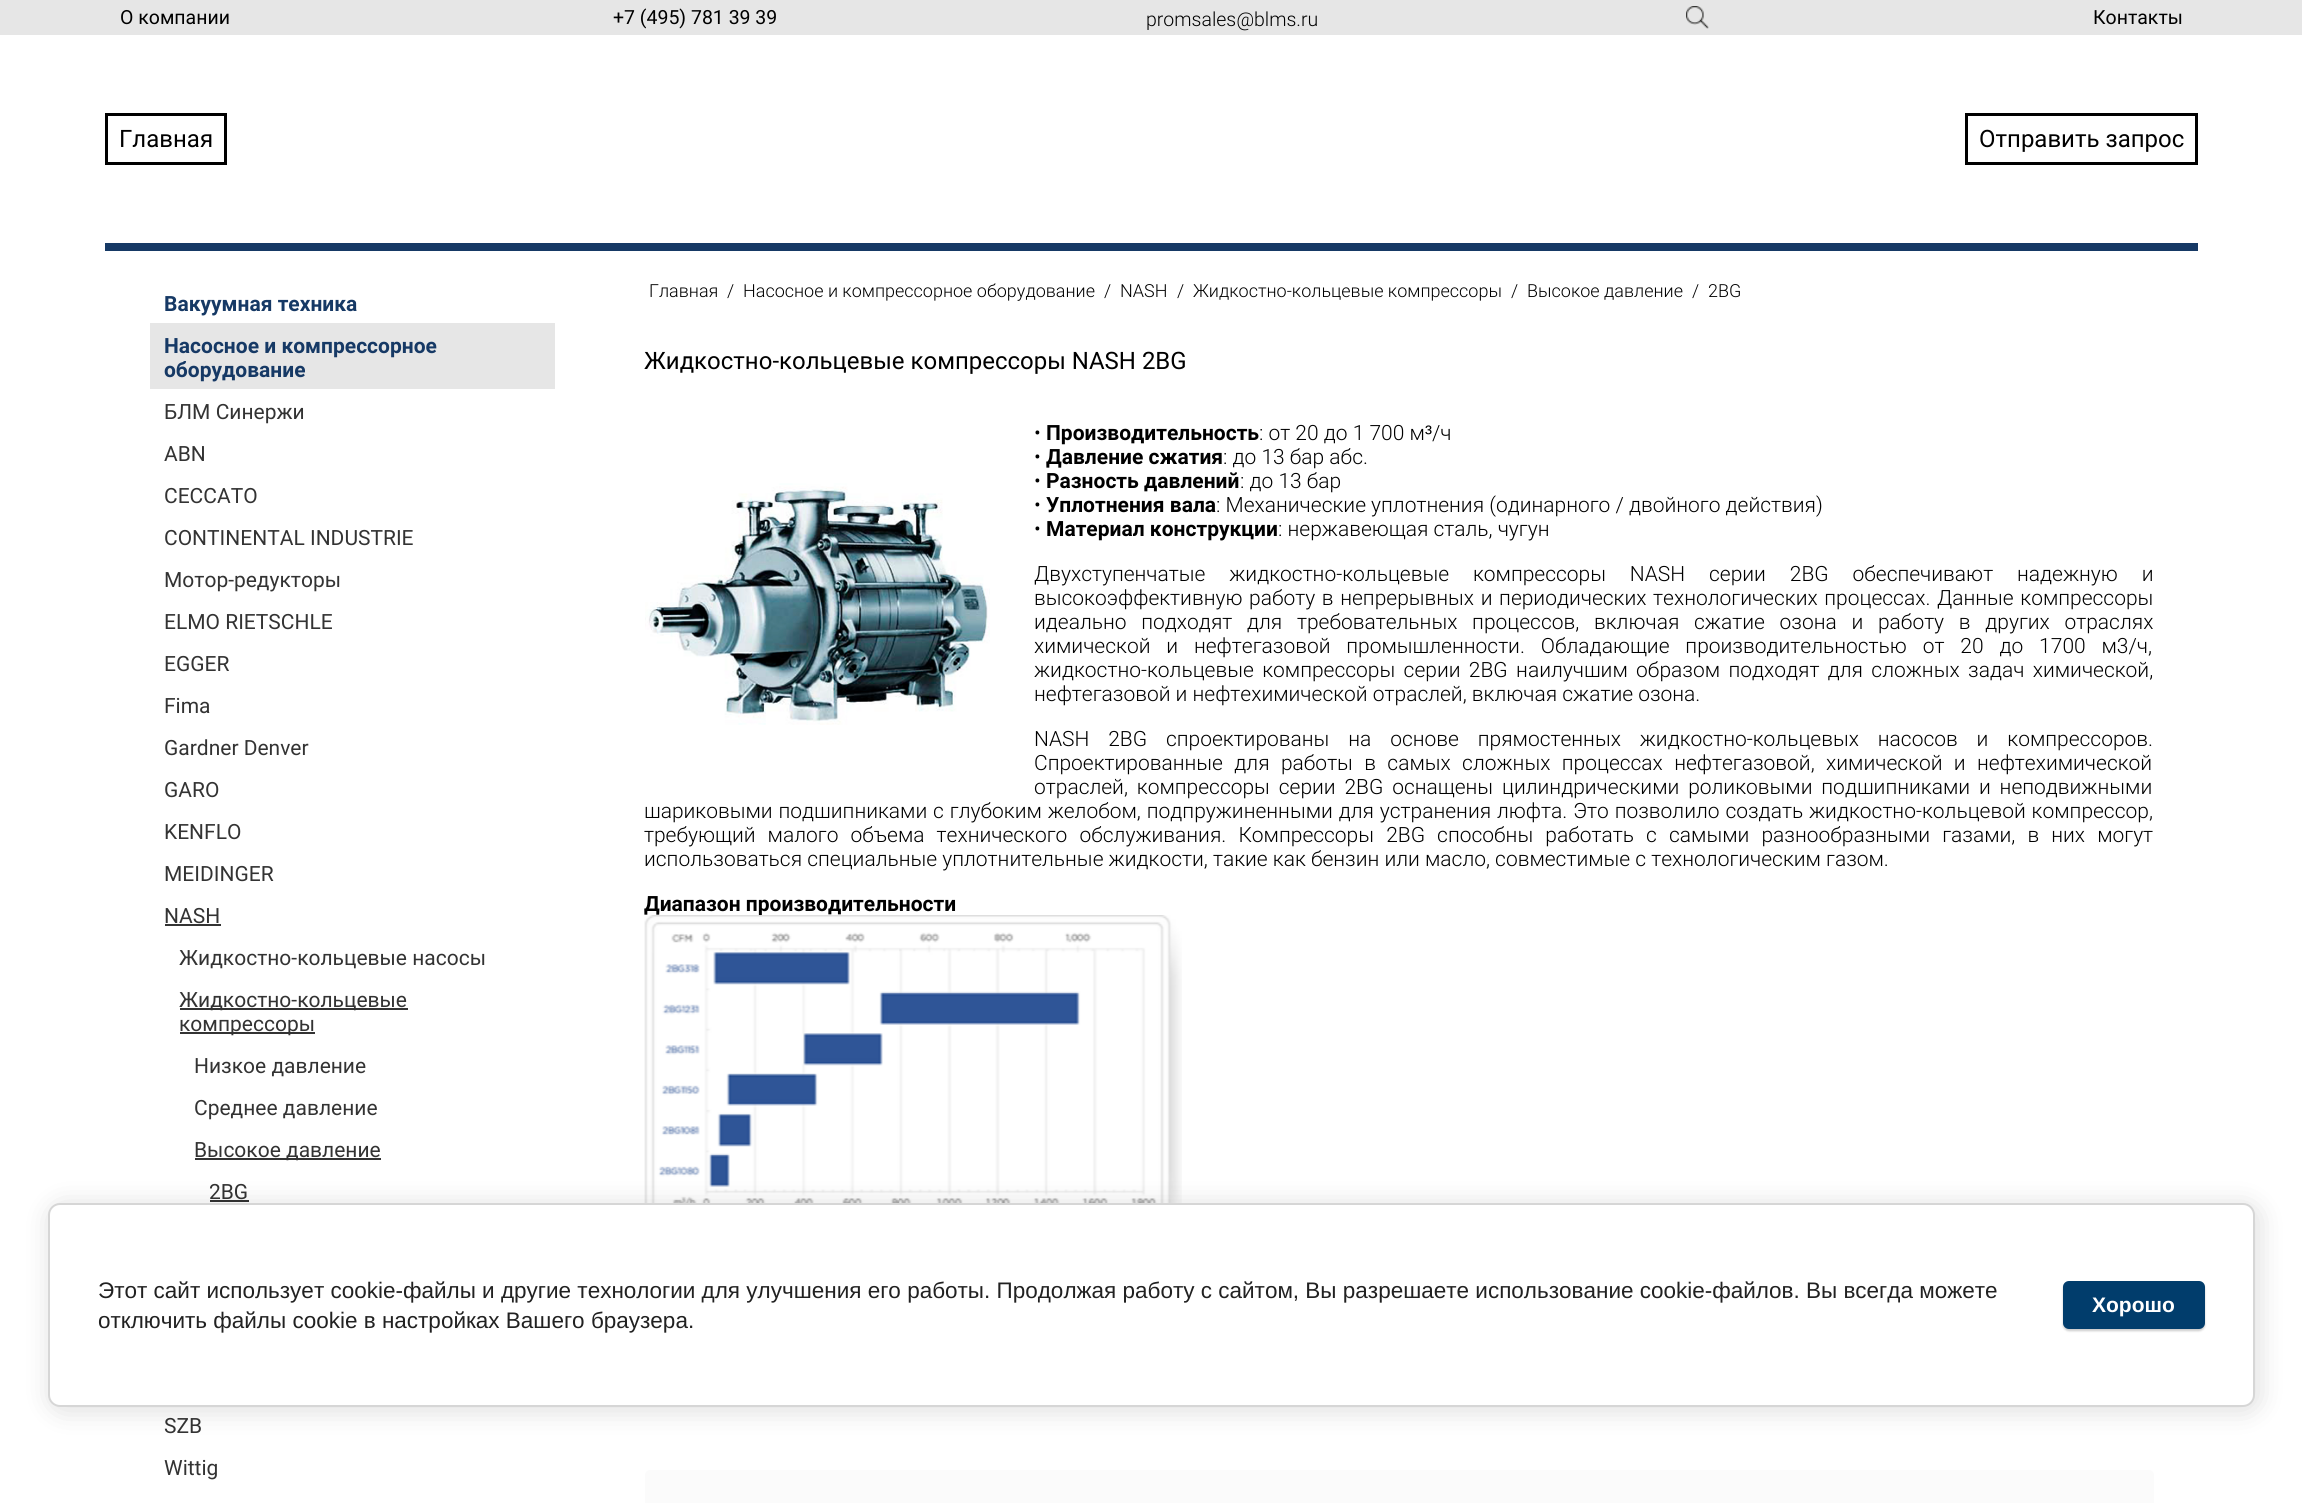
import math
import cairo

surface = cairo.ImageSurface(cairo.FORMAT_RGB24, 2302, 1503)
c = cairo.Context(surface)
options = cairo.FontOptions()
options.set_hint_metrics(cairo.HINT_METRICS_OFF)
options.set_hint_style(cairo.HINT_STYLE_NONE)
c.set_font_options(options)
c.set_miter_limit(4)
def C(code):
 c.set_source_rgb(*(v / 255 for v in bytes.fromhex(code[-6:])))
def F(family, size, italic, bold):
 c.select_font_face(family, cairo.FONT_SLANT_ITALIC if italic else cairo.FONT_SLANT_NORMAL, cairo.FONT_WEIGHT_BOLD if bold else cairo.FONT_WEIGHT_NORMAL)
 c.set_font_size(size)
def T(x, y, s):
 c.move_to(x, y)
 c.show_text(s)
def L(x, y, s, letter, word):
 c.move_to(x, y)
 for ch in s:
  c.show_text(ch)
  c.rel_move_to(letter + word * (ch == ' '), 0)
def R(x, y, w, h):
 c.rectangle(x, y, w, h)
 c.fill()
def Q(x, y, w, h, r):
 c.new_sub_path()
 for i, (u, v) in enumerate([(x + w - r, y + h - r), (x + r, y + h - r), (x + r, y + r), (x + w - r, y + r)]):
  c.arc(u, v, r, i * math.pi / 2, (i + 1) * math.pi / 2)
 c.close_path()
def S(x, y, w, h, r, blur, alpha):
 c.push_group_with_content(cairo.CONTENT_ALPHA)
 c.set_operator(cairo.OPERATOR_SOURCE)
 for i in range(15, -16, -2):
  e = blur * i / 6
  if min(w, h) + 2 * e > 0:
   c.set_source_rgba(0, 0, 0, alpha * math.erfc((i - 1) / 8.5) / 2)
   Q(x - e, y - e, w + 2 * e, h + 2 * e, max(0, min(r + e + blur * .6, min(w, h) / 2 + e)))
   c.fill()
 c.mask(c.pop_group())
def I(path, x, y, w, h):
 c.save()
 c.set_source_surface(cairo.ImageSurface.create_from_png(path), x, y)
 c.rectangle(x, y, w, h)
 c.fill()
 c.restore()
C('ffffff')
c.paint()
C('e6e6e6')
R(0,0,2302,35)
F('Roboto',19.5,0,0)
C('000000')
T(120,24,'О компании')
T(613,24,'+7 (495) 781 39 39')
F('Roboto Light',19.5,0,0)
T(1146,26,'promsales@blms.ru')
I('1.png',1686,6,23,23)
F('Roboto',19.5,0,0)
T(2093,24,'Контакты')
C('163965')
R(105,243,2093,8)
c.rectangle(106.5,114.5,119,49)
C('000000')
c.set_line_width(3)
c.stroke()
F('Roboto',24,0,0)
T(119,147,'Главная')
c.rectangle(1966.5,114.5,230,49)
c.stroke()
T(1979,147,'Отправить запрос')
F('Roboto',21,0,1)
C('163965')
T(164,311,'Вакуумная техника')
C('e6e6e6')
R(150,323,405,66)
C('163965')
T(164,353,'Насосное и компрессорное')
T(164,377,'оборудование')
F('Roboto',21,0,0)
C('333333')
T(164,419,'БЛМ Синержи')
T(164,461,'ABN')
T(164,503,'CECCATO')
T(164,545,'CONTINENTAL INDUSTRIE')
T(164,587,'Мотор-редукторы')
T(164,629,'ELMO RIETSCHLE')
T(164,671,'EGGER')
T(164,713,'Fima')
T(164,755,'Gardner Denver')
T(164,797,'GARO')
T(164,839,'KENFLO')
T(164,881,'MEIDINGER')
T(164,923,'NASH')
R(165,924,56,2)
T(179,965,'Жидкостно-кольцевые насосы')
R(180,1008,228,2)
T(179,1007,'Жидкостно-кольцевые')
R(180,1032,135,2)
T(179,1031,'компрессоры')
T(194,1073,'Низкое давление')
T(194,1115,'Среднее давление')
R(195,1158,186,2)
T(194,1157,'Высокое давление')
T(209,1199,'2BG')
R(210,1200,39,2)
T(164,1433,'SZB')
T(164,1475,'Wittig')
F('Roboto Light',18,0,0)
C('000000')
T(649,297,'Главная')
T(727,297,'/')
T(743,297,'Насосное и компрессорное оборудование')
T(1104,297,'/')
T(1120,297,'NASH')
T(1177,297,'/')
T(1193,297,'Жидкостно-кольцевые компрессоры')
T(1511,297,'/')
T(1527,297,'Высокое давление')
T(1692,297,'/')
T(1708,297,'2BG')
F('Roboto',24,0,0)
T(644,369,'Жидкостно-кольцевые компрессоры NASH 2BG')
F('Roboto Light',21,0,0)
T(1034,440,'•')
F('Roboto',21,0,1)
T(1046,440,'Производительность')
F('Roboto Light',21,0,0)
T(1259,440,': от 20 до 1 700 м')
F('Liberation Sans',21,0,0)
T(1425,440,'³')
F('Roboto Light',21,0,0)
T(1432,440,'/ч')
T(1034,464,'•')
F('Roboto',21,0,1)
T(1046,464,'Давление сжатия')
F('Roboto Light',21,0,0)
T(1223,464,': до 13 бар абс.')
T(1034,488,'•')
F('Roboto',21,0,1)
T(1046,488,'Разность давлений')
F('Roboto Light',21,0,0)
T(1240,488,': до 13 бар')
T(1034,512,'•')
F('Roboto',21,0,1)
T(1046,512,'Уплотнения вала')
F('Roboto Light',21,0,0)
T(1216,512,': Механические уплотнения (одинарного / двойного действия)')
T(1034,536,'•')
F('Roboto',21,0,1)
T(1046,536,'Материал конструкции')
F('Roboto Light',21,0,0)
T(1278,536,': нержавеющая сталь, чугун')
L(1034,581,'Двухступенчатые жидкостно-кольцевые компрессоры NASH серии 2BG обеспечивают надежную и',0,18.75)
L(1034,605,'высокоэффективную работу в непрерывных и периодических технологических процессах. Данные компрессоры',0,1.5)
L(1034,629,'идеально подходят для требовательных процессов, включая сжатие озона и работу в других отраслях',0,9.6)
L(1034,653,'химической и нефтегазовой промышленности. Обладающие производительностью от 20 до 1700 м3/ч,',0,10.75)
L(1034,677,'жидкостно-кольцевые компрессоры серии 2BG наилучшим образом подходят для сложных задач химической,',0,3.25)
T(1034,701,'нефтегазовой и нефтехимической отраслей, включая сжатие озона.')
L(1034,746,'NASH 2BG спроектированы на основе прямостенных жидкостно-кольцевых насосов и компрессоров.',0,13.75)
L(1034,770,'Спроектированные для работы в самых сложных процессах нефтегазовой, химической и нефтехимической',0,6.25)
L(1034,794,'отраслей, компрессоры серии 2BG оснащены цилиндрическими роликовыми подшипниками и неподвижными',0,3.75)
L(644,818,'шариковыми подшипниками с глубоким желобом, подпружиненными для устранения люфта. Это позволило создать жидкостно-кольцевой компрессор,',0,.75)
L(644,842,'требующий малого объема технического обслуживания. Компрессоры 2BG способны работать с самыми разнообразными газами, в них могут',0,7)
T(644,866,'использоваться специальные уплотнительные жидкости, такие как бензин или масло, совместимые с технологическим газом.')
F('Roboto',21,0,1)
T(644,911,'Диапазон производительности')
I('2.png',644,915,538,288)
I('3.png',645,483,345,242)
C('fbfbfb')
Q(645,1470,1509,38,5)
c.fill()
C('000000')
S(51,1206,2207,204,12,13.5,.14)
C('ffffff')
Q(49,1204,2205,202,11)
c.fill_preserve()
C('d6d6d6')
c.set_line_width(2)
c.stroke()
F('Liberation Sans',22.5,0,0)
C('212121')
T(98,1298,'Этот сайт использует cookie-файлы и другие технологии для улучшения его работы. Продолжая работу с сайтом, Вы разрешаете использование cookie-файлов. Вы всегда можете')
T(98,1328,'отключить файлы cookie в настройках Вашего браузера.')
C('000000')
S(2063,1283,142,48,6,1,.2)
C('013d6c')
Q(2064,1282,140,46,5)
c.fill_preserve()
c.stroke()
F('Liberation Sans',21,0,1)
C('ffffff')
T(2092,1312,'Хорошо')
surface.write_to_png('o.png')
